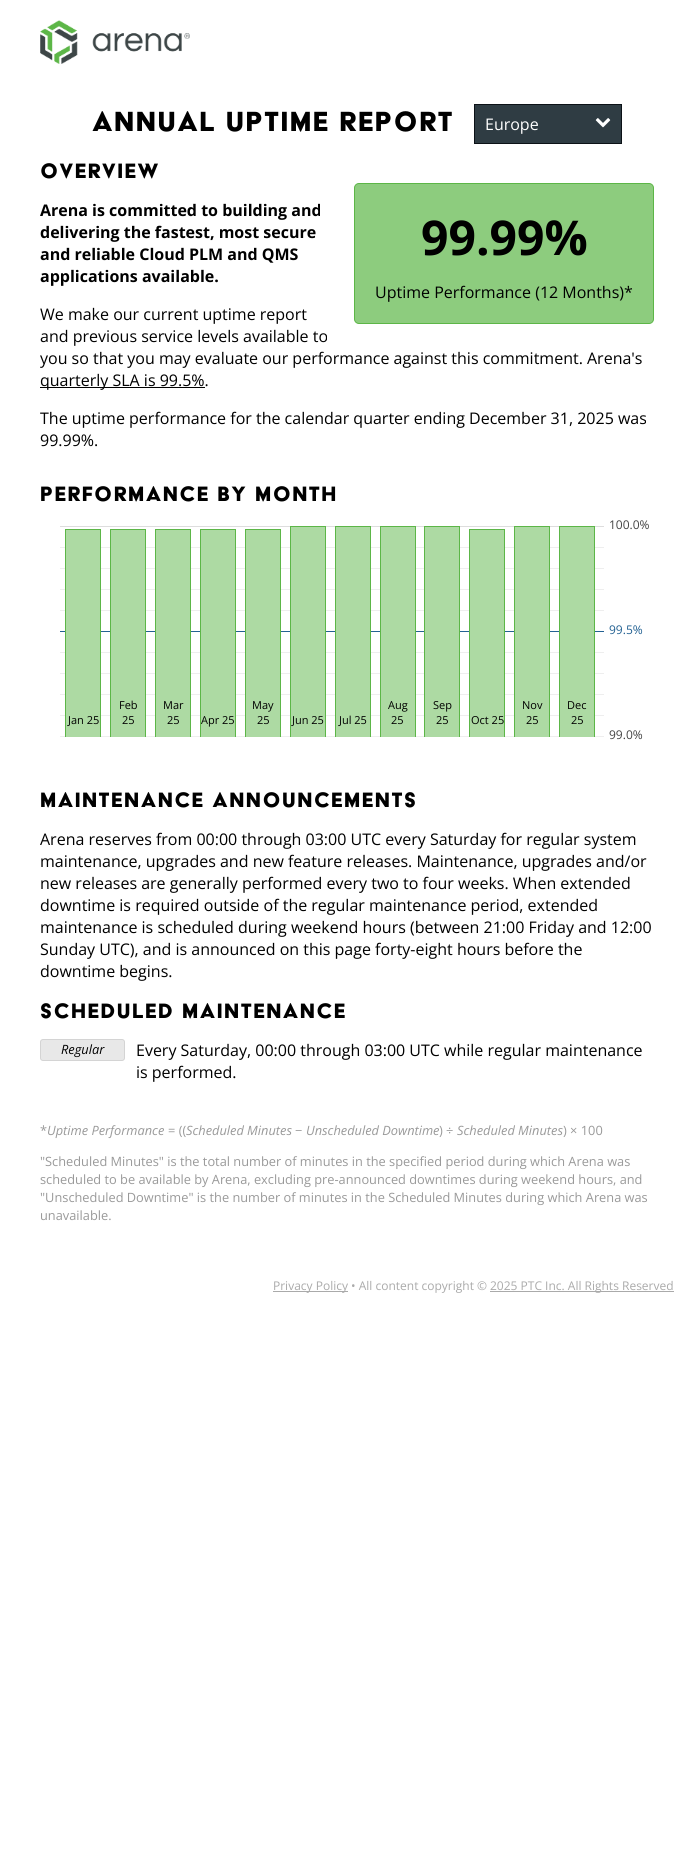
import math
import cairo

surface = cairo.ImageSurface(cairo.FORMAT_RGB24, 694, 1871)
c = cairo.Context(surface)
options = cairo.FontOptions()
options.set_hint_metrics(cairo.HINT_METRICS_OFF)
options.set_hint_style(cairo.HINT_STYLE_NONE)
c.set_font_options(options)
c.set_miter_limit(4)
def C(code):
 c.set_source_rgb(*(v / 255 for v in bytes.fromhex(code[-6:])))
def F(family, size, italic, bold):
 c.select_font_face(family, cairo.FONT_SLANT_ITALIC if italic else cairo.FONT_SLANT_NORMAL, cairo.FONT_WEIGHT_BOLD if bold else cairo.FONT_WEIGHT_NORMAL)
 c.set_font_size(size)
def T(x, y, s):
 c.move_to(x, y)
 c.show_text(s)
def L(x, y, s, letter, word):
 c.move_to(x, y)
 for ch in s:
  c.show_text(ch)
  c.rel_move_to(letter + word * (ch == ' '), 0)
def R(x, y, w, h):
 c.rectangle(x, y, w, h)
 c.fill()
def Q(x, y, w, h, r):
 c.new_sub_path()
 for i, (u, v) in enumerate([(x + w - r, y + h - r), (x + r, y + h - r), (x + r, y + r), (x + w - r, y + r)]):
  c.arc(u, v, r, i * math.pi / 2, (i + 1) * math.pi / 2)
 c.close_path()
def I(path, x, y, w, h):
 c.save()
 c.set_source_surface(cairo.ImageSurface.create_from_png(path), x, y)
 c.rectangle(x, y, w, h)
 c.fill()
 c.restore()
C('ffffff')
c.paint()
I('1.png',40,20,150,44)
F('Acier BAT',32,0,0)
C('000000')
L(92,131,'Annual Uptime Report',1.5,0)
C('2f3c43')
c.rectangle(474.5,104.5,147,39)
c.fill_preserve()
C('0c1217')
c.set_line_width(1)
c.stroke()
F('Open Sans',16,0,0)
C('ffffff')
T(485,130,'Europe')
I('2.png',595,118,16,10)
F('Acier BAT',24,0,0)
C('000000')
L(40,178,'Overview',1.5,0)
F('Open Sans',16,0,1)
T(40,216,'Arena is committed to building and')
T(40,238,'delivering the fastest, most secure')
T(40,260,'and reliable Cloud PLM and QMS')
T(40,282,'applications available.')
C('8dcc7e')
Q(354.5,183.5,299,140,4.5)
c.fill_preserve()
C('5cb647')
c.stroke()
F('Open Sans',48,0,1)
C('000000')
T(421,255,'99.99%')
F('Open Sans',16,0,0)
T(375,298,'Uptime Performance (12 Months)*')
T(40,320,'We make our current uptime report')
T(40,342,'and previous service levels available to')
T(40,364,'you so that you may evaluate our performance against this commitment. Arena\'s')
R(40,387,165,1)
T(40,386,'quarterly SLA is 99.5%.')
T(40,424,'The uptime performance for the calendar quarter ending December 31, 2025 was')
T(40,446,'99.99%.')
F('Acier BAT',24,0,0)
L(40,501,'Performance by Month',1.5,0)
C('eeeeee')
R(60,547,544,1)
R(60,568,544,1)
R(60,589,544,1)
R(60,610,544,1)
C('236192')
R(60,631,544,1)
C('eeeeee')
R(60,652,544,1)
R(60,673,544,1)
R(60,694,544,1)
R(60,715,544,1)
R(60,736,544,1)
C('addaa3')
R(66,530,34,207)
C('5cb647')
R(65,529,36,1)
R(100,529,1,208)
R(65,529,1,208)
F('Open Sans',11,0,0)
C('000000')
T(68,724,'Jan 25')
C('addaa3')
R(111,530,34,207)
C('5cb647')
R(110,529,36,1)
R(145,529,1,208)
R(110,529,1,208)
C('000000')
T(119,709,'Feb')
T(122,724,'25')
C('addaa3')
R(156,530,34,207)
C('5cb647')
R(155,529,36,1)
R(190,529,1,208)
R(155,529,1,208)
C('000000')
T(163,709,'Mar')
T(167,724,'25')
C('addaa3')
R(201,530,34,207)
C('5cb647')
R(200,529,36,1)
R(235,529,1,208)
R(200,529,1,208)
C('000000')
T(201,724,'Apr 25')
C('addaa3')
R(246,530,34,207)
C('5cb647')
R(245,529,36,1)
R(280,529,1,208)
R(245,529,1,208)
C('000000')
T(252,709,'May')
T(257,724,'25')
C('addaa3')
R(291,527,34,210)
C('dddddd')
R(60,526,544,1)
C('5cb647')
R(290,526,36,1)
R(325,526,1,211)
R(290,526,1,211)
C('000000')
T(292,724,'Jun 25')
C('addaa3')
R(336,527,34,210)
C('5cb647')
R(335,526,36,1)
R(370,526,1,211)
R(335,526,1,211)
C('000000')
T(339,724,'Jul 25')
C('addaa3')
R(381,527,34,210)
C('5cb647')
R(380,526,36,1)
R(415,526,1,211)
R(380,526,1,211)
C('000000')
T(388,709,'Aug')
T(391,724,'25')
C('addaa3')
R(425,527,34,210)
C('5cb647')
R(424,526,36,1)
R(459,526,1,211)
R(424,526,1,211)
C('000000')
T(433,709,'Sep')
T(436,724,'25')
C('addaa3')
R(470,530,34,207)
C('5cb647')
R(469,529,36,1)
R(504,529,1,208)
R(469,529,1,208)
C('000000')
T(471,724,'Oct 25')
C('addaa3')
R(515,527,34,210)
C('5cb647')
R(514,526,36,1)
R(549,526,1,211)
R(514,526,1,211)
C('000000')
T(522,709,'Nov')
T(526,724,'25')
C('addaa3')
R(560,527,34,210)
C('5cb647')
R(559,526,36,1)
R(594,526,1,211)
R(559,526,1,211)
C('000000')
T(567,709,'Dec')
T(571,724,'25')
F('Open Sans',12,0,0)
C('444444')
T(609,529,'100.0%')
C('236192')
T(609,634,'99.5%')
C('444444')
T(609,739,'99.0%')
F('Acier BAT',24,0,0)
C('000000')
L(40,807,'Maintenance Announcements',1.5,0)
F('Open Sans',16,0,0)
T(40,845,'Arena reserves from 00:00 through 03:00 UTC every Saturday for regular system')
T(40,867,'maintenance, upgrades and new feature releases. Maintenance, upgrades and/or')
T(40,889,'new releases are generally performed every two to four weeks. When extended')
T(40,911,'downtime is required outside of the regular maintenance period, extended')
T(40,933,'maintenance is scheduled during weekend hours (between 21:00 Friday and 12:00')
T(40,955,'Sunday UTC), and is announced on this page forty-eight hours before the')
T(40,977,'downtime begins.')
F('Acier BAT',24,0,0)
L(40,1018,'Scheduled Maintenance',1.5,0)
C('e8e8e8')
Q(40.5,1039.5,84,21,2.5)
c.fill_preserve()
C('d4d4d4')
c.stroke()
F('Open Sans',12.8,1,0)
C('000000')
T(61,1054,'Regular')
F('Open Sans',16,0,0)
T(136,1056,'Every Saturday, 00:00 through 03:00 UTC while regular maintenance')
T(136,1078,'is performed.')
F('Open Sans',12.8,0,0)
C('999999')
T(40,1135,'*')
F('Open Sans',12.8,1,0)
T(47,1135,'Uptime Performance')
F('Open Sans',12.8,0,0)
T(168,1135,'= ((')
F('Open Sans',12.8,1,0)
T(186,1135,'Scheduled Minutes')
F('Open Sans',12.8,0,0)
T(295,1135,'−')
F('Open Sans',12.8,1,0)
T(306,1135,'Unscheduled Downtime')
F('Open Sans',12.8,0,0)
T(439,1135,') ÷')
F('Open Sans',12.8,1,0)
T(457,1135,'Scheduled Minutes')
F('Open Sans',12.8,0,0)
T(563,1135,') × 100')
T(40,1166,'"Scheduled Minutes" is the total number of minutes in the specified period during which Arena was')
T(40,1184,'scheduled to be available by Arena, excluding pre-announced downtimes during weekend hours, and')
T(40,1202,'"Unscheduled Downtime" is the number of minutes in the Scheduled Minutes during which Arena was')
T(40,1220,'unavailable.')
C('aaaaaa')
R(273,1291,75,1)
F('Open Sans',12,0,0)
T(273,1290,'Privacy Policy • All content copyright ©')
R(490,1291,184,1)
T(490,1290,'2025 PTC Inc. All Rights Reserved')
surface.write_to_png('o.png')
